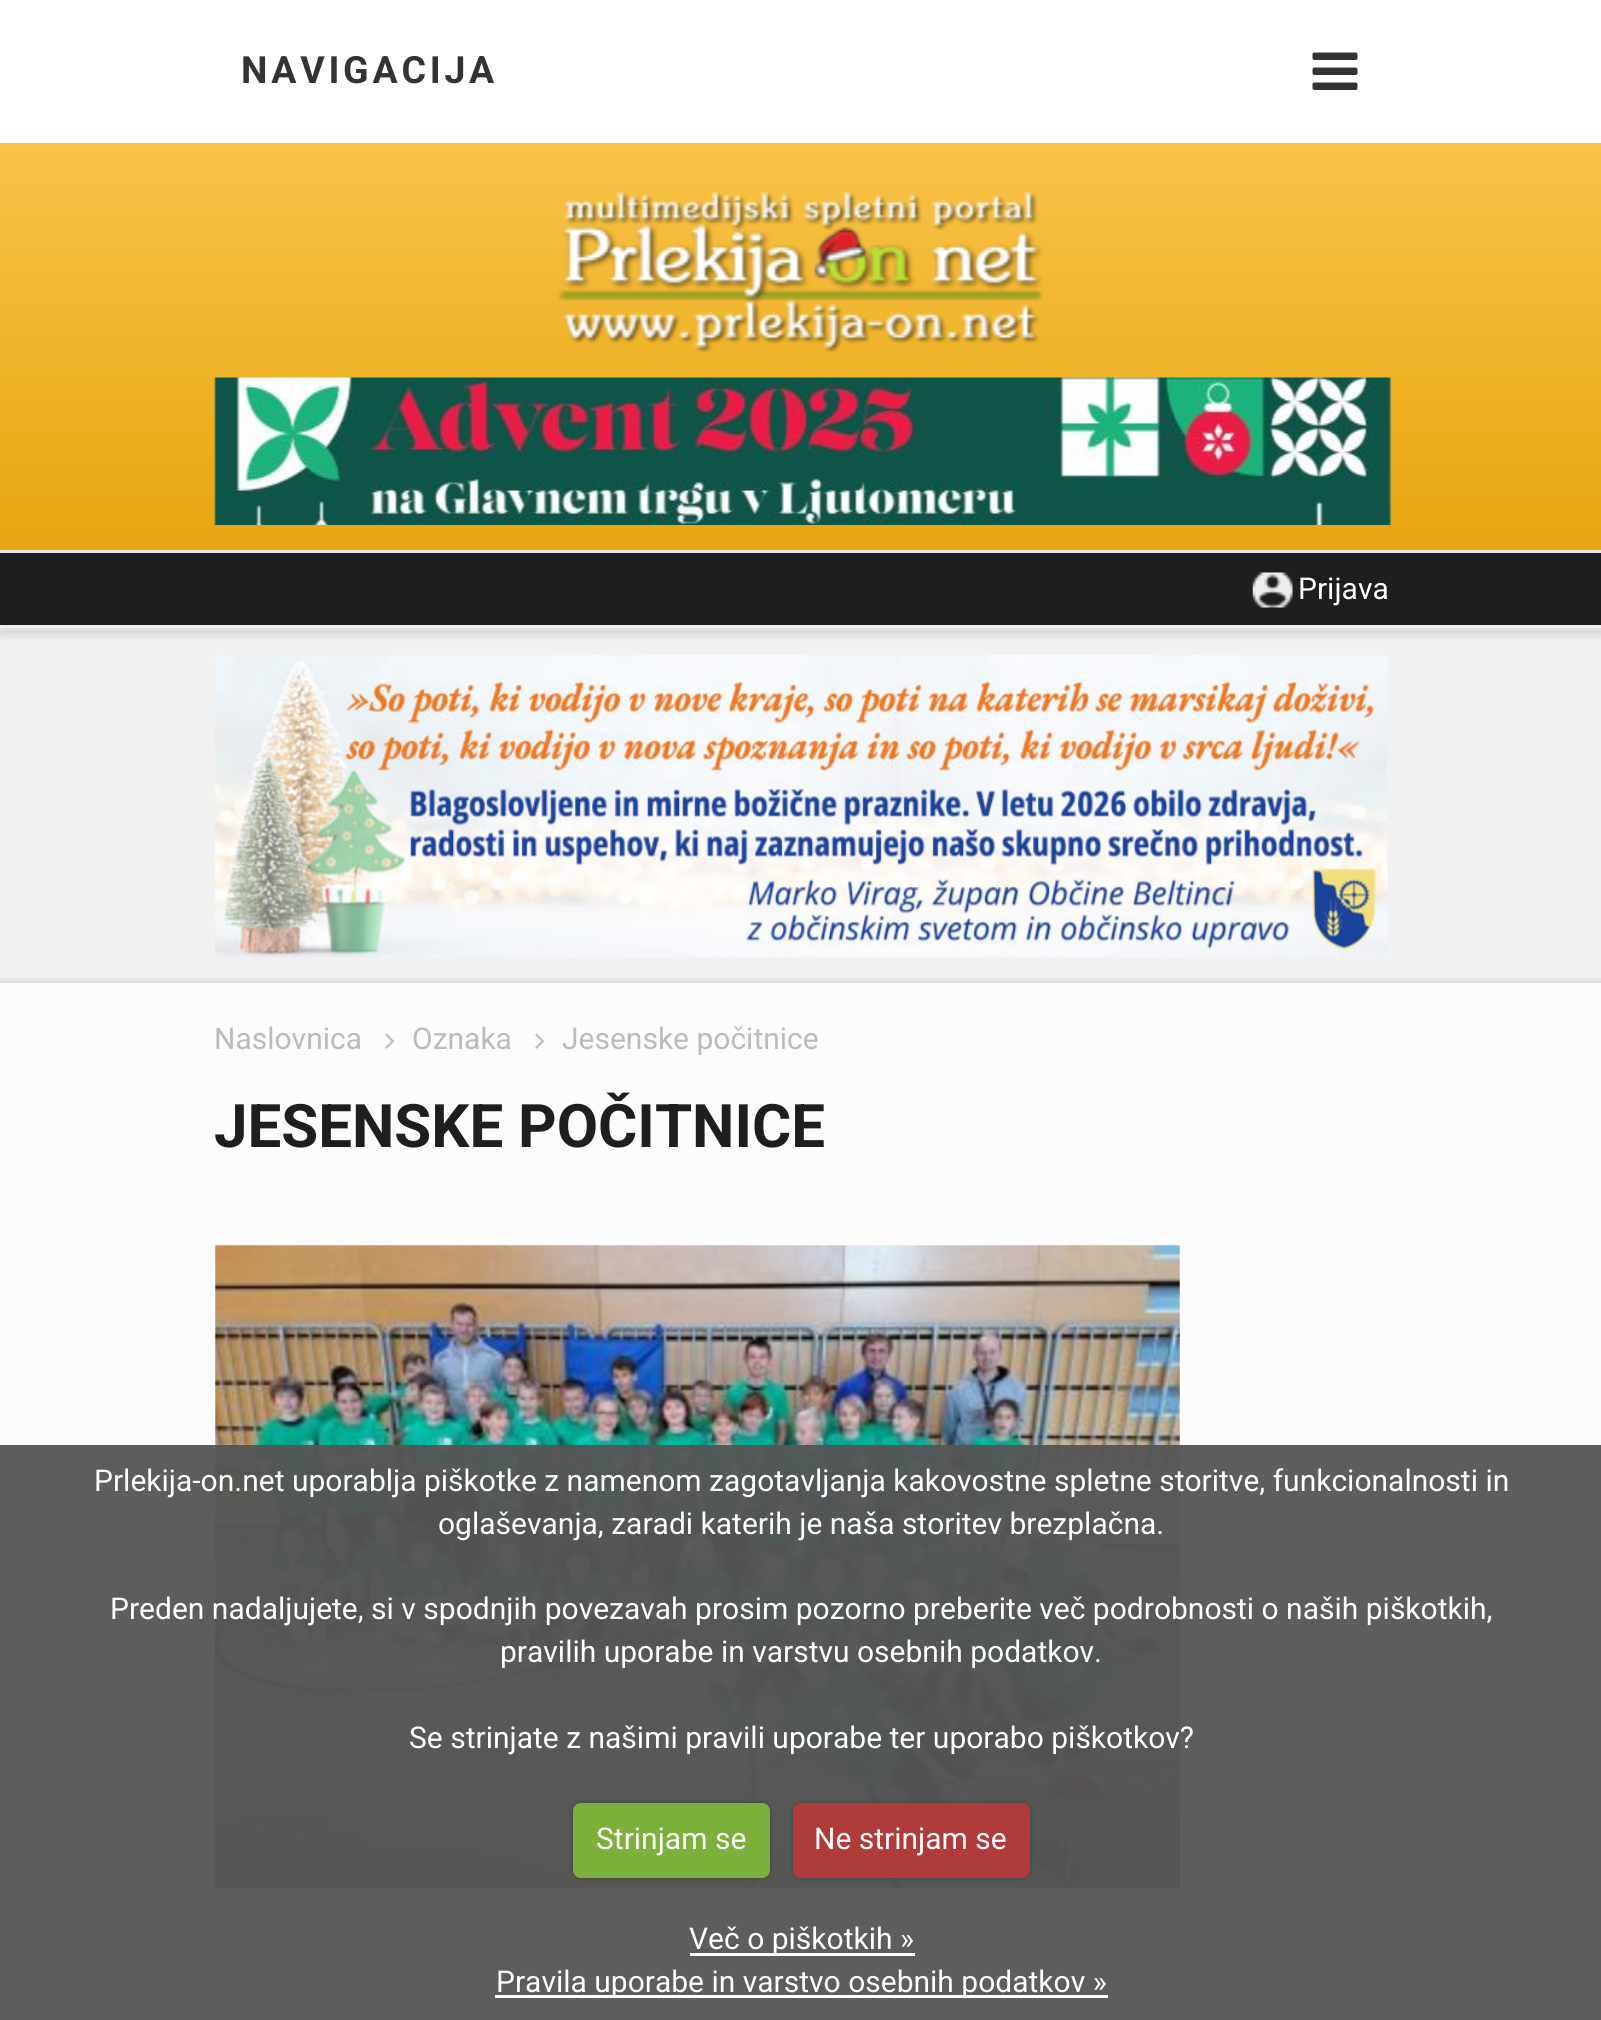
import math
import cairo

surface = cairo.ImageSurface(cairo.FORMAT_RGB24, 1601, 2020)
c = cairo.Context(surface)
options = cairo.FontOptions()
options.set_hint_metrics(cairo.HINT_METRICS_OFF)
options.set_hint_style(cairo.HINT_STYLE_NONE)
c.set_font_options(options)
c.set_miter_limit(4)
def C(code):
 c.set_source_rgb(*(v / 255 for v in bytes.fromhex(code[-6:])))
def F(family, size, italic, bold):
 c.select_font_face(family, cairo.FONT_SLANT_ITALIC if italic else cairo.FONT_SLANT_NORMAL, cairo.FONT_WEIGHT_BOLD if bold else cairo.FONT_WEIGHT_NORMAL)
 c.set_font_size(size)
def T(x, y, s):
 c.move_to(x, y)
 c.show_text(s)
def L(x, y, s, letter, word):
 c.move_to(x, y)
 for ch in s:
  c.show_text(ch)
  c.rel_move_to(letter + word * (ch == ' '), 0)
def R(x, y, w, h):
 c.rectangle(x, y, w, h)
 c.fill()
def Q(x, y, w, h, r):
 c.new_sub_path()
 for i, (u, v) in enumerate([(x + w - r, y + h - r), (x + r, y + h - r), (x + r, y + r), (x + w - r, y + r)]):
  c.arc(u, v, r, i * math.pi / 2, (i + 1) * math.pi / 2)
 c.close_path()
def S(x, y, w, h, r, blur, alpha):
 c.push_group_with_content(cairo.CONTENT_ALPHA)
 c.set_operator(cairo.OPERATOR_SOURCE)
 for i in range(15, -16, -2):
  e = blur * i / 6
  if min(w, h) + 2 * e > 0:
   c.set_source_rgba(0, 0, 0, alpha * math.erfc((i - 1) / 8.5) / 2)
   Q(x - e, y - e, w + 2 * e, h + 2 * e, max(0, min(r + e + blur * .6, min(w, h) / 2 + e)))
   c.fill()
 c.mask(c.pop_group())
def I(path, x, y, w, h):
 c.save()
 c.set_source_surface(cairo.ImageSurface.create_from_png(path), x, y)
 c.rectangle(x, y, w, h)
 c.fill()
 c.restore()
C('f1f1f1')
c.paint()
C('000000')
S(0,5,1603,630,0,5,.08)
C('ffffff')
R(0,0,1601,143)
C('efefef')
R(0,628,1601,3)
F('Roboto',37.5,0,1)
C('333333')
L(241,83,'NAVIGACIJA',3.75,0)
I('1.png',1312,52,46,38)
gradient = cairo.LinearGradient(801,142,801,550)
gradient.add_color_stop_rgba(0,0.976,0.765,0.286,1)
gradient.add_color_stop_rgba(1,0.906,0.651,0.059,1)
c.set_source(gradient)
R(0,143,1601,407)
C('e7e7e7')
R(0,550,1601,3)
I('2.png',558,191,486,162)
I('3.png',214,377,1177,148)
C('000000')
S(0,558,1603,75,0,5,.08)
C('1d1e20')
R(0,553,1601,72)
C('efefef')
R(0,625,1601,3)
I('4.png',1252,572,41,36)
F('Roboto',30,0,0)
C('ffffff')
T(1298,599,'Prijava')
I('5.png',215,655,1173,303)
C('000000')
S(-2,980,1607,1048,0,2.5,.1)
C('fcfcfc')
R(0,983,1601,1037)
C('bbbbbb')
T(214,1049,'Naslovnica')
I('6.png',385,1033,9,16)
T(412,1049,'Oznaka')
I('6.png',535,1033,9,16)
T(562,1049,'Jesenske počitnice')
F('Roboto',60,0,1)
C('1d1e20')
T(214,1147,'JESENSKE POČITNICE')
I('7.png',215,1245,965,643)
gradient = cairo.LinearGradient(698,1888,698,1245)
gradient.add_color_stop_rgba(0,0,0,0,.5)
gradient.add_color_stop_rgba(.6,0,0,0,0)
c.set_source(gradient)
R(215,1519,965,369)
c.set_source_rgba(0.337,0.337,0.337,0.95)
R(0,1445,1601,575)
F('Roboto',30,0,0)
C('ffffff')
T(94,1491,'Prlekija-on.net uporablja piškotke z namenom zagotavljanja kakovostne spletne storitve, funkcionalnosti in')
T(438,1534,'oglaševanja, zaradi katerih je naša storitev brezplačna.')
T(110,1619,'Preden nadaljujete, si v spodnjih povezavah prosim pozorno preberite več podrobnosti o naših piškotkih,')
T(500,1662,'pravilih uporabe in varstvu osebnih podatkov.')
T(409,1748,'Se strinjate z našimi pravili uporabe ter uporabo piškotkov?')
C('000000')
S(573,1803,197,75,8,2.5,.25)
C('7daf3b')
Q(573,1803,197,75,8)
c.fill()
C('ffffff')
T(596,1849,'Strinjam se')
C('000000')
S(793,1803,237,75,8,2.5,.25)
C('af3b3b')
Q(793,1803,237,75,8)
c.fill()
C('ffffff')
T(814,1849,'Ne strinjam se')
R(690,1953,225,3)
T(689,1949,'Več o piškotkih »')
R(495,1995,613,3)
T(496,1992,'Pravila uporabe in varstvo osebnih podatkov »')
surface.write_to_png('o.png')
